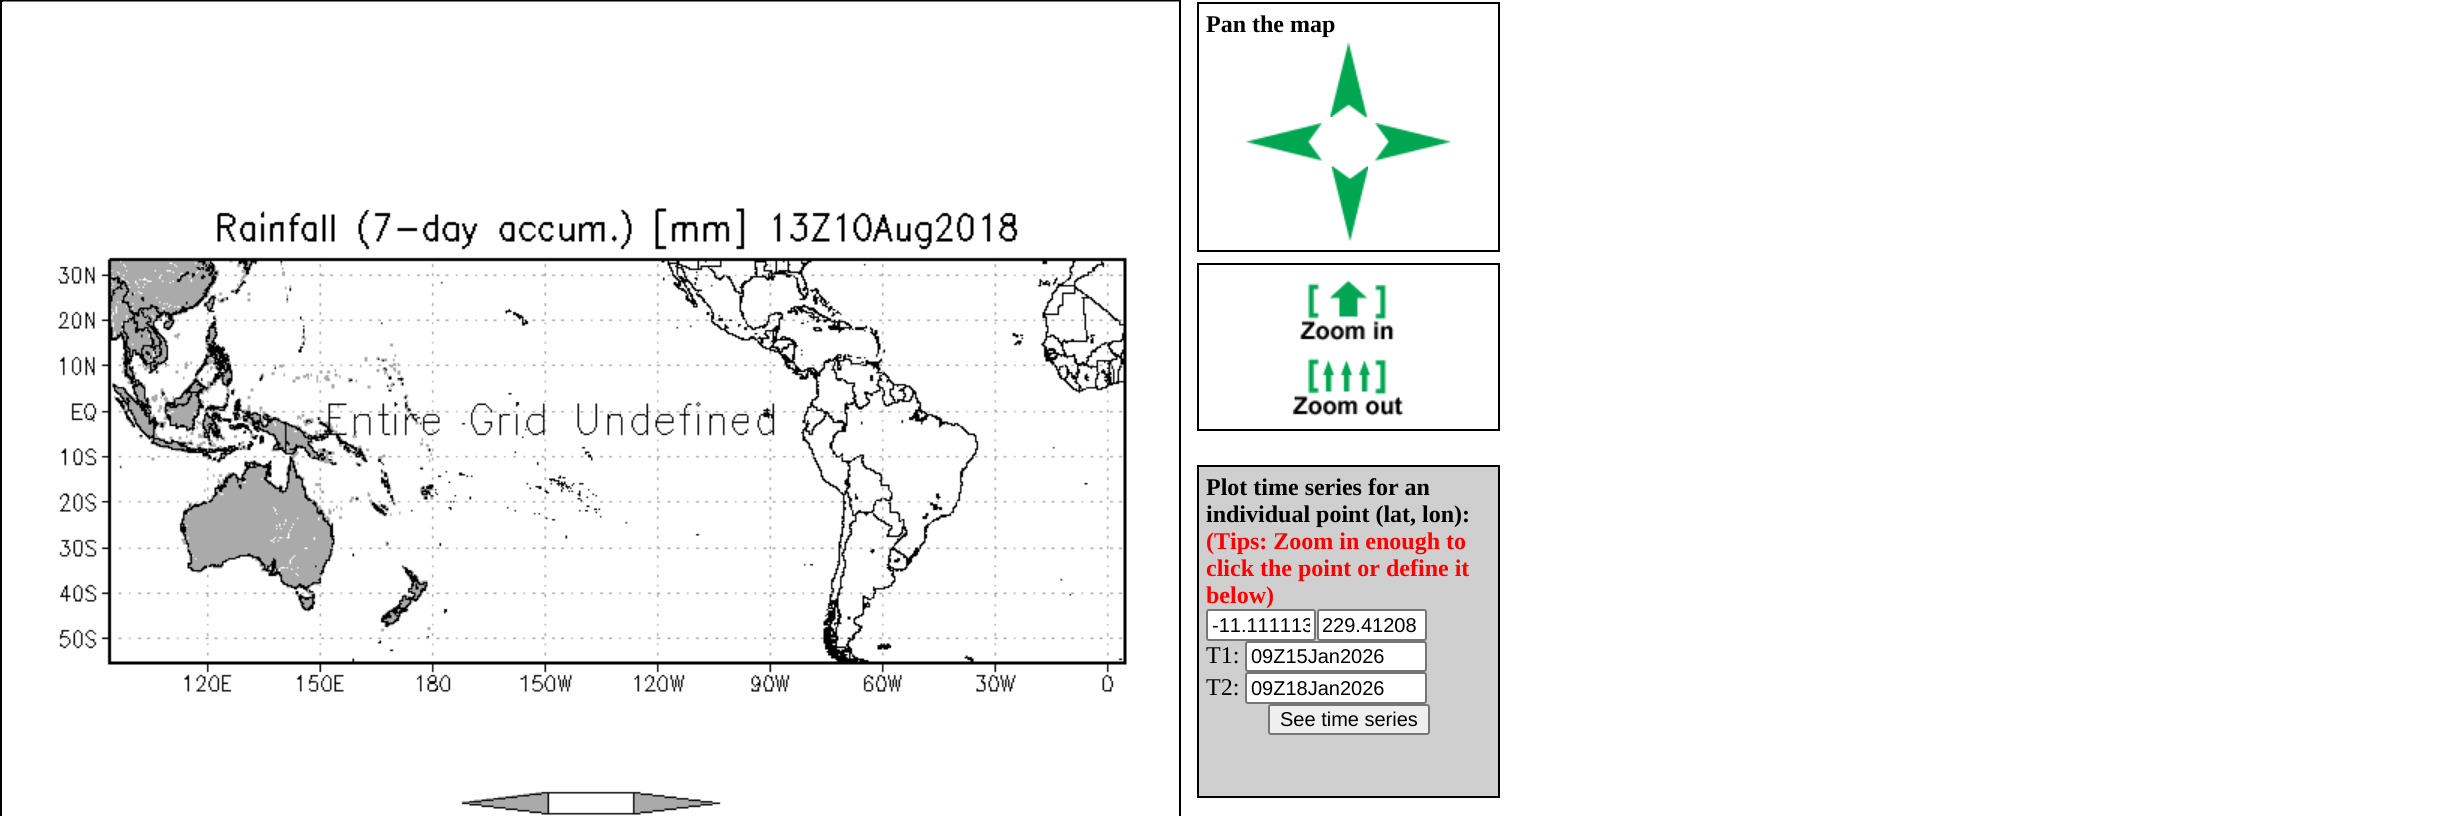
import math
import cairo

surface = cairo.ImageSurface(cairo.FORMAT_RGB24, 2444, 816)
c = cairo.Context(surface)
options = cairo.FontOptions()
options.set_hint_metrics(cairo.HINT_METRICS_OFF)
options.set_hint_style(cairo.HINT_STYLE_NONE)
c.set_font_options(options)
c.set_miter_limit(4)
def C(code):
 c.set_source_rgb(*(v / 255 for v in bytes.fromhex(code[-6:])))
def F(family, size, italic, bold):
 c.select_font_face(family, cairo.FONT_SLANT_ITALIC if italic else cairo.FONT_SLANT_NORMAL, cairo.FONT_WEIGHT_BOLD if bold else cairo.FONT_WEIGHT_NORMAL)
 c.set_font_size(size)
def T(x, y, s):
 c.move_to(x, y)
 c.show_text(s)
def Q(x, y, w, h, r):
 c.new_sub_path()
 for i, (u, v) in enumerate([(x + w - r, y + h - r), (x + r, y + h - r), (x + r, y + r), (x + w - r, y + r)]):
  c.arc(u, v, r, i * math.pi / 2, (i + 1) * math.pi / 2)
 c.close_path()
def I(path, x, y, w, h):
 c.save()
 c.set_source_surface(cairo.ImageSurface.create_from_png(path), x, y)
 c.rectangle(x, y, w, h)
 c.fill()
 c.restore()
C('ffffff')
c.paint()
c.rectangle(1,1,1179,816)
C('000000')
c.stroke()
I('1.png',3,1,1176,814)
c.rectangle(1198,3,301,248)
c.stroke()
F('Liberation Serif',24,0,1)
T(1206,32,'Pan the map')
I('2.png',1330,42,38,75)
I('3.png',1246,123,76,38)
I('4.png',1375,123,76,38)
I('5.png',1330,166,38,76)
c.rectangle(1198,264,301,166)
c.stroke()
I('6.png',1300,280,94,61)
I('7.png',1292,358,111,58)
C('cfcfcf')
c.rectangle(1198,466,301,331)
c.fill_preserve()
C('000000')
c.stroke()
T(1206,495,'Plot time series for an')
T(1206,522,'individual point (lat, lon):')
C('ff0000')
T(1206,549,'(Tips: Zoom in enough to')
T(1206,576,'click the point or define it')
T(1206,603,'below)')
C('ffffff')
Q(1207,610,108,30,2)
c.fill_preserve()
C('767676')
c.stroke()
c.save()
c.rectangle(1212,614,98,22)
c.clip()
F('Liberation Sans',20,0,0)
C('000000')
T(1212,632,'-11.111113')
c.restore()
C('ffffff')
Q(1318,610,108,30,2)
c.fill_preserve()
C('767676')
c.stroke()
F('Liberation Sans',20,0,0)
C('000000')
T(1322,632,'229.41208')
F('Liberation Serif',24,0,0)
T(1206,663,'T1:')
C('ffffff')
Q(1246,642,180,29,2)
c.fill_preserve()
C('767676')
c.stroke()
F('Liberation Sans',20,0,0)
C('000000')
T(1251,663,'09Z15Jan2026')
F('Liberation Serif',24,0,0)
T(1206,695,'T2:')
C('ffffff')
Q(1246,673,180,30,2)
c.fill_preserve()
C('767676')
c.stroke()
F('Liberation Sans',20,0,0)
C('000000')
T(1251,695,'09Z18Jan2026')
C('efefef')
Q(1269,705,160,29,2)
c.fill_preserve()
C('767676')
c.stroke()
C('000000')
T(1280,726,'See time series')
surface.write_to_png('o.png')
